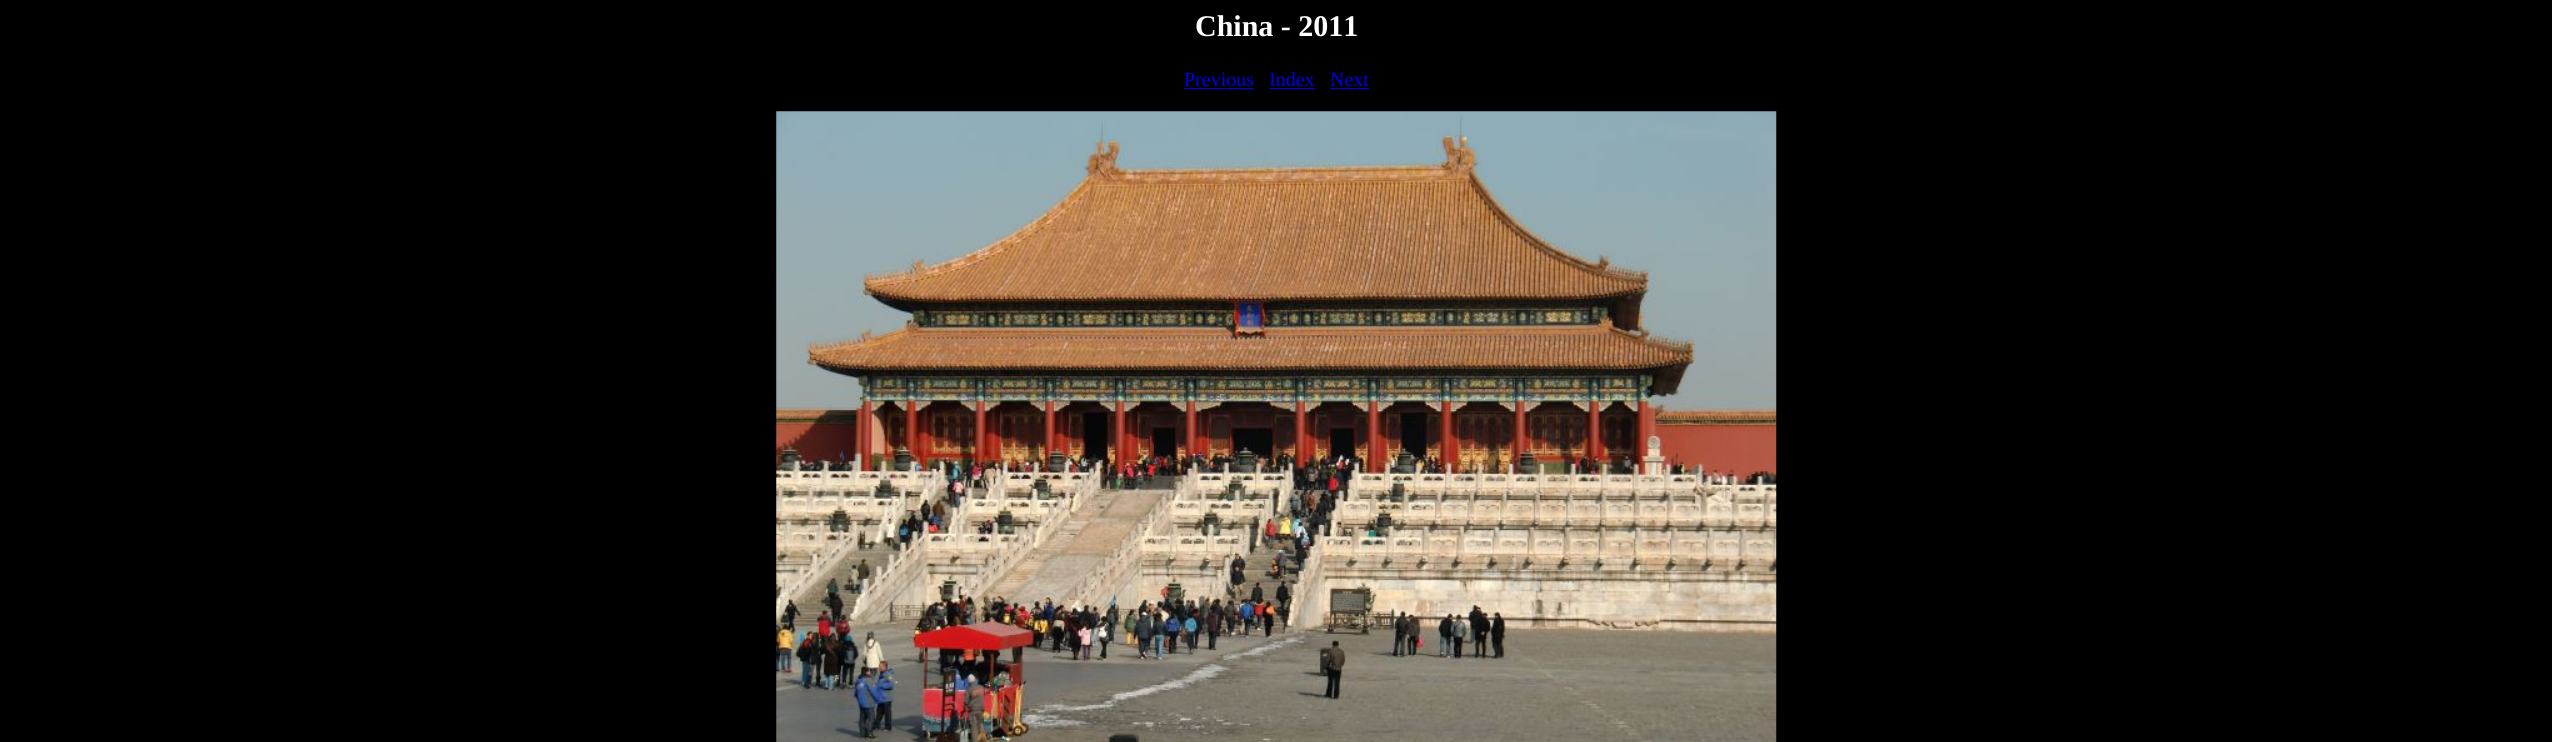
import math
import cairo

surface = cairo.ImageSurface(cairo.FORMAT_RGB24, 2552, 742)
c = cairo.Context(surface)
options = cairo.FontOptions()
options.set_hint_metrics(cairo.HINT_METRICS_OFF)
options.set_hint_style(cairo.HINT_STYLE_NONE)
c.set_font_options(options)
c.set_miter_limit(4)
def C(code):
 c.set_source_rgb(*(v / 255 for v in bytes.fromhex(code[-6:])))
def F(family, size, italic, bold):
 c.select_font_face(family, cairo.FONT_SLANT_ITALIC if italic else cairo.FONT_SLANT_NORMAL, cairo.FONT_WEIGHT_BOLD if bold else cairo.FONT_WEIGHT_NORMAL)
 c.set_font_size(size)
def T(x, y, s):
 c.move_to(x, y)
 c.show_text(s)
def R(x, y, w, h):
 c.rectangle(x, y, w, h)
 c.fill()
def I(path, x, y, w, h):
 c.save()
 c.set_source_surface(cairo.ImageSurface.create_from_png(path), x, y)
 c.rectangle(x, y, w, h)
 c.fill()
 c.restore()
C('000000')
c.paint()
F('Liberation Serif',30,0,1)
C('ffffff')
T(1195,36,'China - 2011')
F('Liberation Serif',20,0,0)
C('0000ee')
T(1184,86,'Previous')
R(1184,88,70,1)
T(1269,86,'Index')
R(1269,88,46,1)
T(1330,86,'Next')
R(1330,88,39,1)
I('1.png',776,111,1001,631)
surface.write_to_png('o.png')
